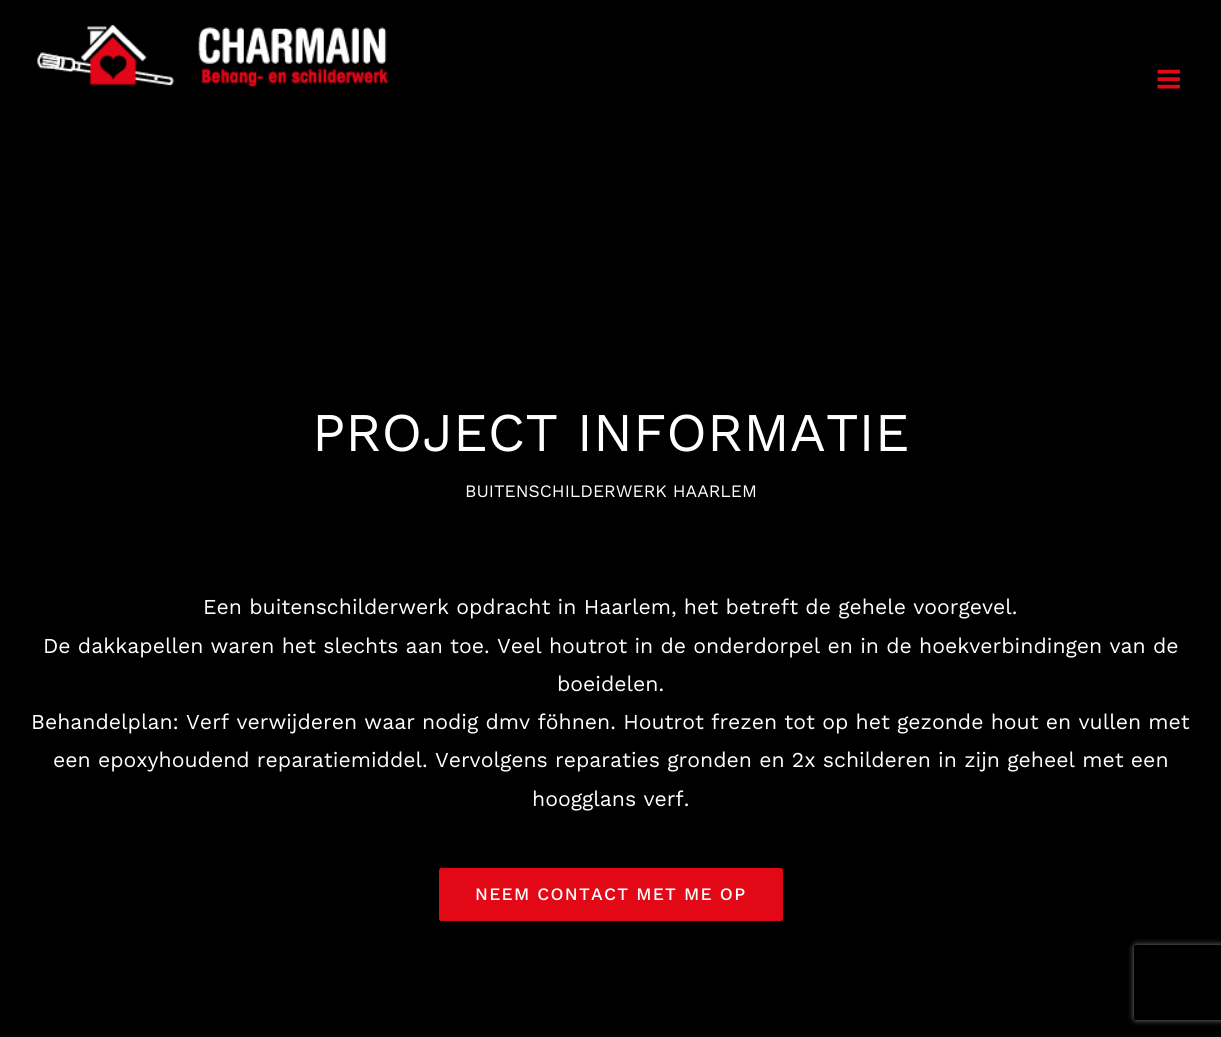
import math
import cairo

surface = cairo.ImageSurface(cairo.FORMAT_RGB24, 1221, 1037)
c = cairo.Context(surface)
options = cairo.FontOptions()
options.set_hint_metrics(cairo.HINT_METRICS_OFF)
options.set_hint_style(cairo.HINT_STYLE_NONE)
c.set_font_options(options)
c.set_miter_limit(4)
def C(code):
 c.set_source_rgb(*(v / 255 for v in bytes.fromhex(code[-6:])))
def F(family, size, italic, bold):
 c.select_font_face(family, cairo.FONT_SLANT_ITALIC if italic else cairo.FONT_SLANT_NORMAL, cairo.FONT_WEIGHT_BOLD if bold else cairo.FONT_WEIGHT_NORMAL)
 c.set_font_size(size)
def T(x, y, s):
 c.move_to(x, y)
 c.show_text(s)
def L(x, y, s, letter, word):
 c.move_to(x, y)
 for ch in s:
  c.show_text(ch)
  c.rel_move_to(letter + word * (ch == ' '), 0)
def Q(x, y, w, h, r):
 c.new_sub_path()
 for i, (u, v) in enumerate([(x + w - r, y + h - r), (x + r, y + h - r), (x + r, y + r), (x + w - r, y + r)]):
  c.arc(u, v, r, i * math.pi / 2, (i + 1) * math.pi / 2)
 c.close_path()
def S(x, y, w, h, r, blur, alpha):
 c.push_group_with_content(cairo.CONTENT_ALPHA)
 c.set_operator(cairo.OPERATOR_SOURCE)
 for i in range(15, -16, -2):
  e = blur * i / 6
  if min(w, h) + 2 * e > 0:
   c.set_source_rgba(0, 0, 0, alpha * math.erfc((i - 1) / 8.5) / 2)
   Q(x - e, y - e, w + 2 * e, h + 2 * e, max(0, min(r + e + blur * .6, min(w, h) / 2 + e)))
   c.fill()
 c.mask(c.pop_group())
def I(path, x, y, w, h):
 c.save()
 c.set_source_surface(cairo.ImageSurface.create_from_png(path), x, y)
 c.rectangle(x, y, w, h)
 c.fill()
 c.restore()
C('000000')
c.paint()
I('1.png',37,25,351,62)
I('2.png',1157,69,23,20)
F('Work Sans',54.5,0,0)
C('ffffff')
T(312,451,'PROJECT INFORMATIE')
F('Work Sans',17.5,0,0)
T(465,497,'BUITENSCHILDERWERK HAARLEM')
F('Work Sans',21.25,0,0)
T(203,614,'Een buitenschilderwerk opdracht in Haarlem, het betreft de gehele voorgevel.')
T(43,653,'De dakkapellen waren het slechts aan toe. Veel houtrot in de onderdorpel en in de hoekverbindingen van de')
T(557,691,'boeidelen.')
T(31,729,'Behandelplan: Verf verwijderen waar nodig dmv föhnen. Houtrot frezen tot op het gezonde hout en vullen met')
T(53,767,'een epoxyhoudend reparatiemiddel. Vervolgens reparaties gronden en 2x schilderen in zijn geheel met een')
T(532,806,'hoogglans verf.')
C('e20816')
Q(439,868,344,53,2.5)
c.fill()
F('Work Sans Medium',17.5,0,0)
C('ffffff')
L(475,900,'NEEM CONTACT MET ME OP',1.25,0)
c.save()
c.set_fill_rule(cairo.FILL_RULE_EVEN_ODD)
c.new_path()
c.move_to(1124,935)
c.line_to(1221,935)
c.line_to(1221,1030)
c.line_to(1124,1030)
c.close_path()
c.move_to(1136.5,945)
c.line_to(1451.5,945)
c.curve_to(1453,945,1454,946,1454,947.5)
c.line_to(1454,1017.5)
c.curve_to(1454,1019,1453,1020,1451.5,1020)
c.line_to(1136.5,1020)
c.curve_to(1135,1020,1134,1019,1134,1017.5)
c.line_to(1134,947.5)
c.curve_to(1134,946,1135,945,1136.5,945)
c.close_path()
c.clip()
C('808080')
S(1134,945,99,75,2.5,3,1)
c.restore()
surface.write_to_png('o.png')
